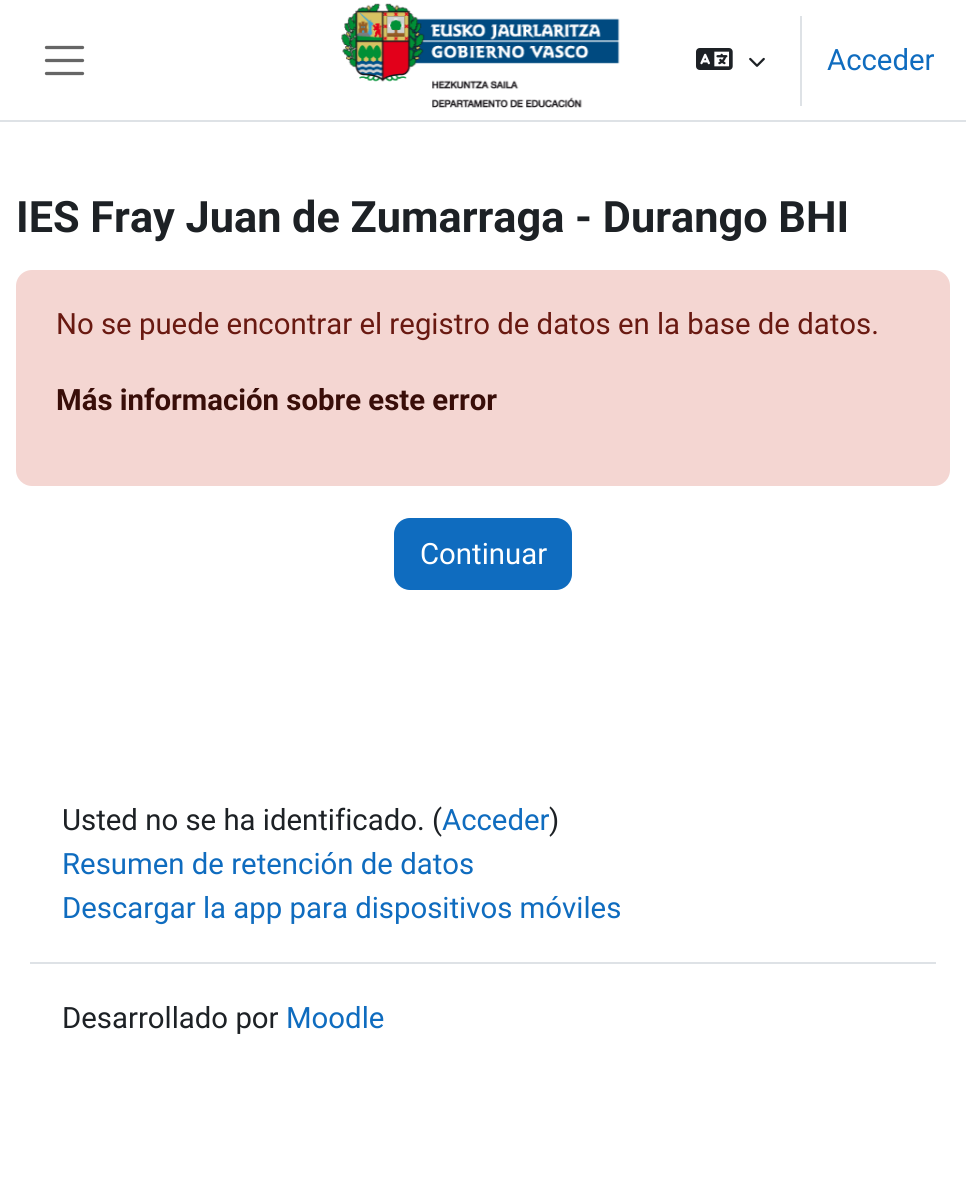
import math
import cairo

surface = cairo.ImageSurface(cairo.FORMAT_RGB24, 966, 1204)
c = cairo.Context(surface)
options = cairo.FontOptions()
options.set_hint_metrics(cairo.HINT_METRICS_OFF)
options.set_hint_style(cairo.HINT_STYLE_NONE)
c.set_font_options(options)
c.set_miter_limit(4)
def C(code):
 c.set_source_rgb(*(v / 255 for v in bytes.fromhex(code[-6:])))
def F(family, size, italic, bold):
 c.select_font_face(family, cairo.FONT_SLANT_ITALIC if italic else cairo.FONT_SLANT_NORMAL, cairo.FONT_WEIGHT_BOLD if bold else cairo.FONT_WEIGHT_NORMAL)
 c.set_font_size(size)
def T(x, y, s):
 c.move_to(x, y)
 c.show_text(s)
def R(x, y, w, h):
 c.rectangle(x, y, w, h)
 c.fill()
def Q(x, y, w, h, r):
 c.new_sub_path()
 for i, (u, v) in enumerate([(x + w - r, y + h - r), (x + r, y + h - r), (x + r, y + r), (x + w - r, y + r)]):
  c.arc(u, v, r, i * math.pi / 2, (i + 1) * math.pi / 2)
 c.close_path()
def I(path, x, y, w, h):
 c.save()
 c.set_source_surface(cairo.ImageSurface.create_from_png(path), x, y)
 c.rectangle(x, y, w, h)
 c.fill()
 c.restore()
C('ffffff')
c.paint()
I('1.png',341,3,279,105)
C('dee2e6')
R(0,120,966,2)
c.new_path()
c.move_to(46.5,47.5)
c.line_to(82.5,47.5)
c.move_to(46.5,60.5)
c.line_to(82.5,60.5)
c.move_to(46.5,73.5)
c.line_to(82.5,73.5)
C('666666')
c.set_line_width(3.3)
c.set_line_cap(cairo.LINE_CAP_ROUND)
c.stroke()
I('2.png',696,48,37,22)
I('3.png',749,57,16,10)
C('dee2e6')
R(800,16,2,90)
F('Roboto',29.35,0,0)
C('0f6cbf')
T(827,70,'Acceder')
F('Roboto',43.25,0,1)
C('1d2125')
T(16,232,'IES Fray Juan de Zumarraga - Durango BHI')
C('f4d6d2')
Q(16,270,934,216,16)
c.fill()
F('Roboto',29.35,0,0)
C('691911')
T(56,334,'No se puede encontrar el registro de datos en la base de datos.')
F('Roboto',29.35,0,1)
C('390e09')
T(56,410,'Más información sobre este error')
C('0f6cbf')
Q(395,519,176,70,15)
c.fill_preserve()
c.set_line_width(2)
c.set_line_cap(cairo.LINE_CAP_BUTT)
c.stroke()
F('Roboto',29.35,0,0)
C('ffffff')
T(420,564,'Continuar')
C('dee2e6')
R(30,962,906,2)
C('1d2125')
T(62,830,'Usted no se ha identificado. (')
C('0f6cbf')
T(442,830,'Acceder')
C('1d2125')
T(549,830,')')
C('0f6cbf')
T(62,874,'Resumen de retención de datos')
T(62,918,'Descargar la app para dispositivos móviles')
C('1d2125')
T(62,1028,'Desarrollado por')
C('0f6cbf')
T(286,1028,'Moodle')
surface.write_to_png('o.png')
